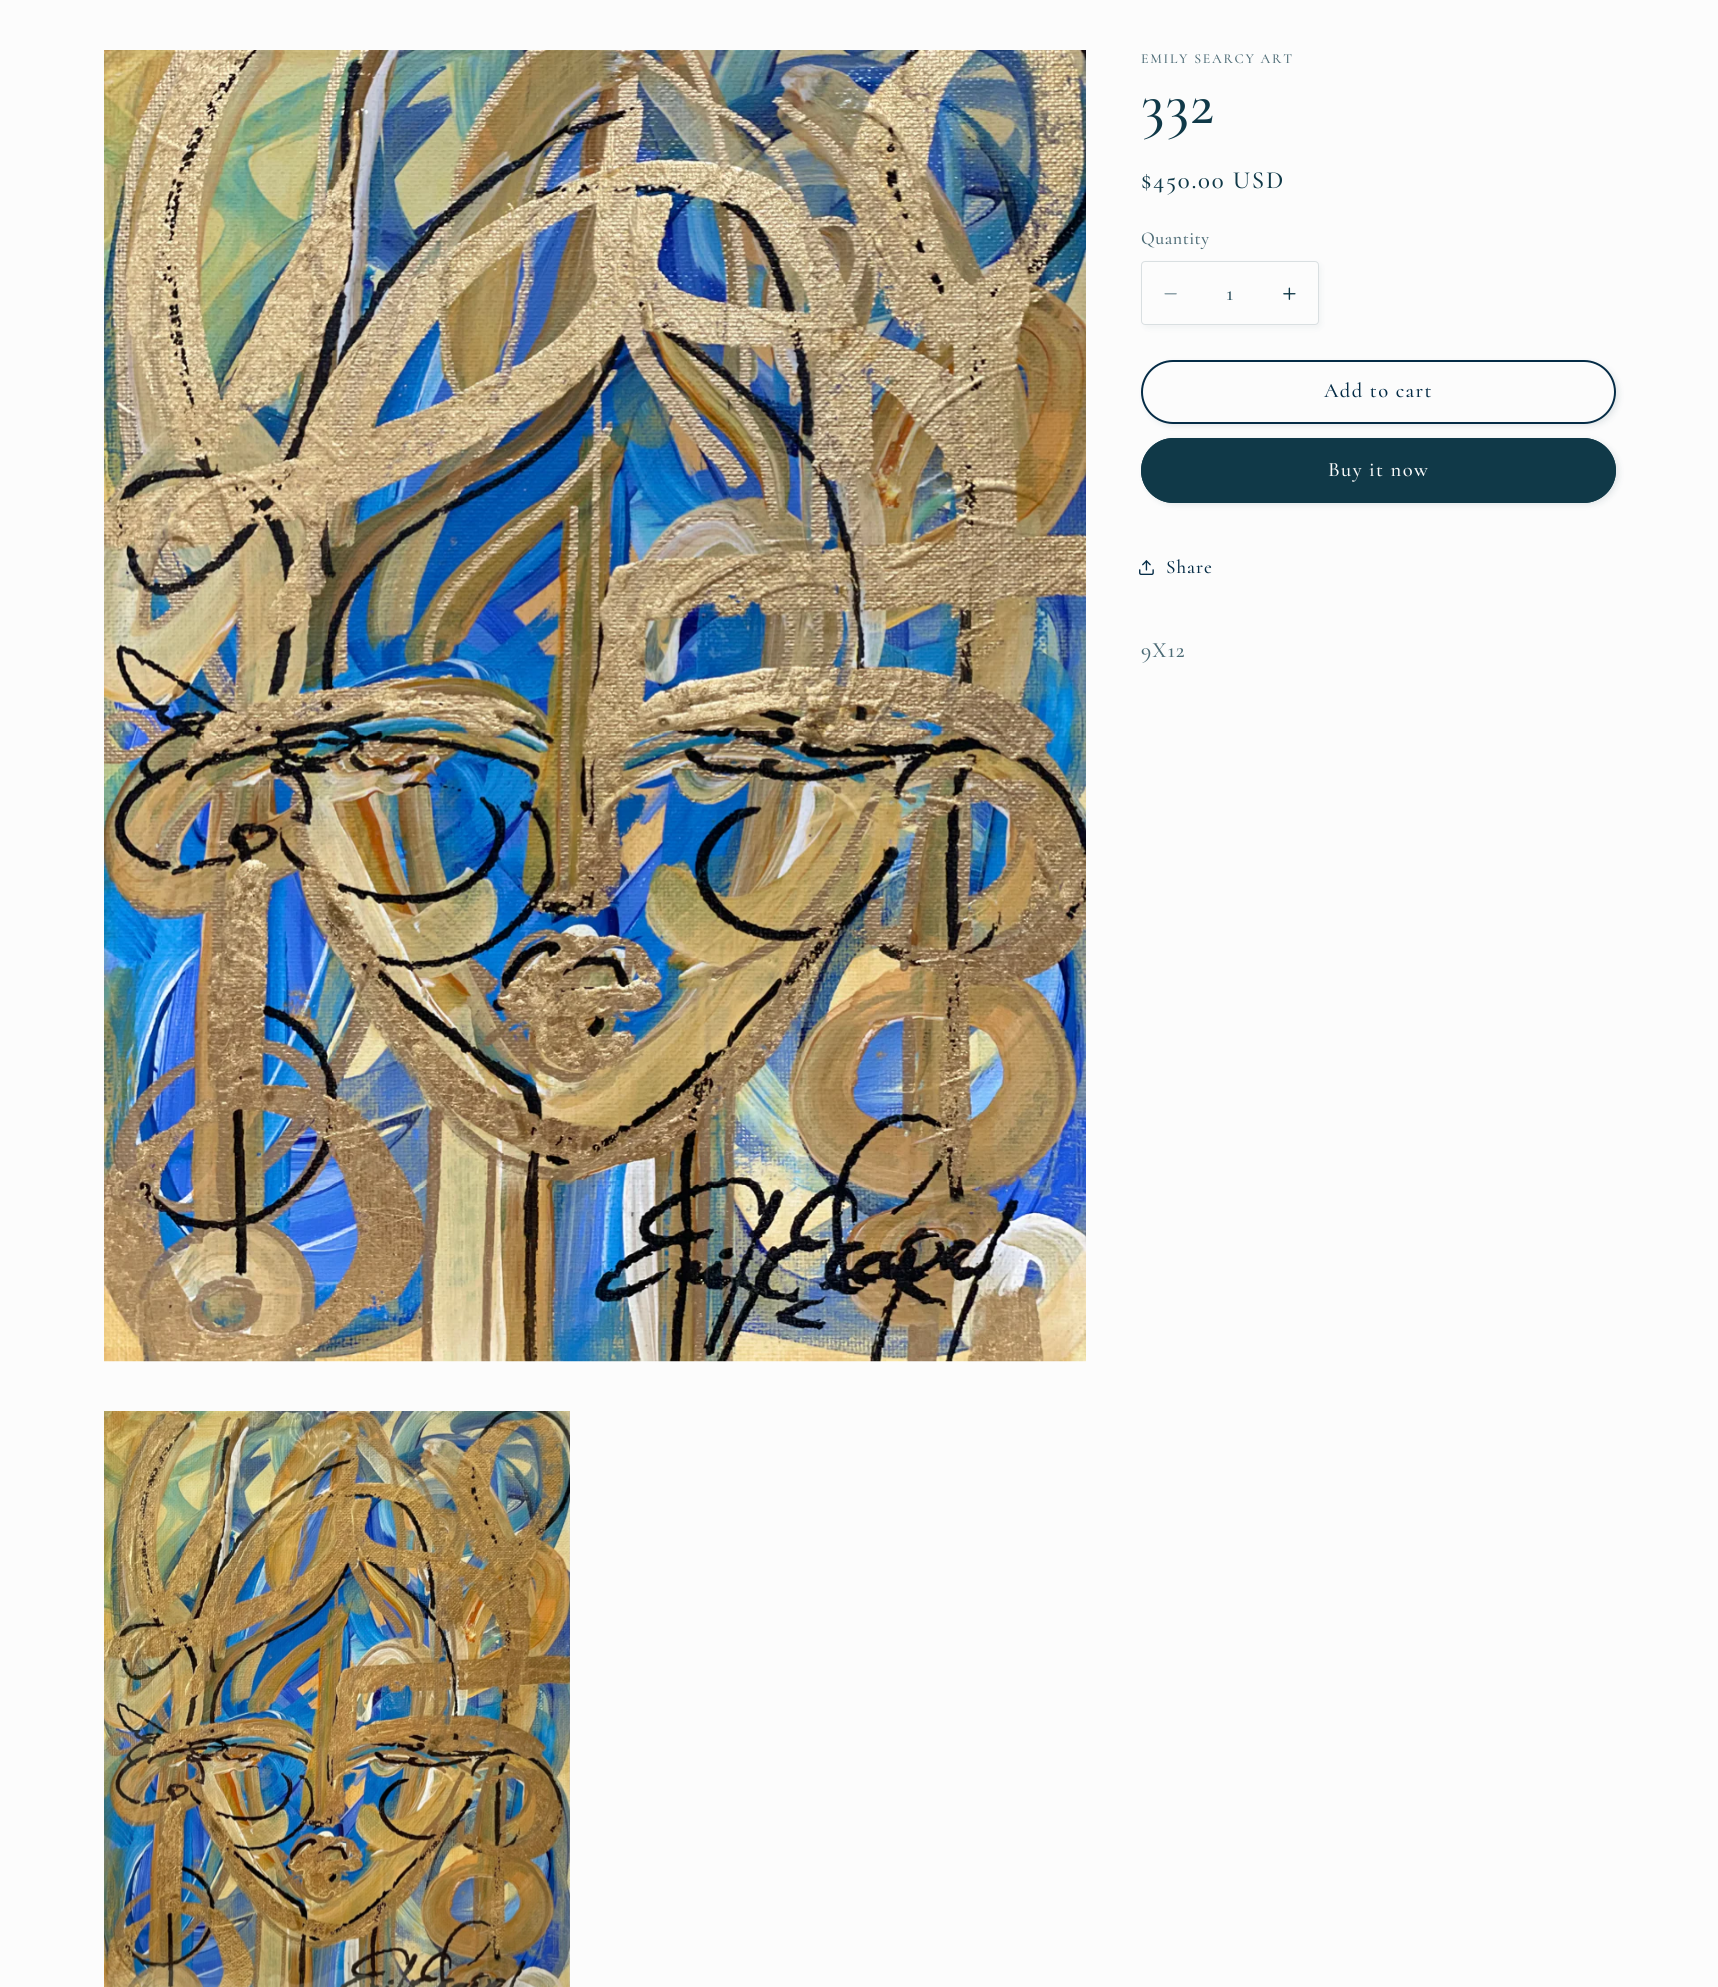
import math
import cairo

surface = cairo.ImageSurface(cairo.FORMAT_RGB24, 1718, 1987)
c = cairo.Context(surface)
options = cairo.FontOptions()
options.set_hint_metrics(cairo.HINT_METRICS_OFF)
options.set_hint_style(cairo.HINT_STYLE_NONE)
c.set_font_options(options)
c.set_miter_limit(4)
def C(code):
 c.set_source_rgb(*(v / 255 for v in bytes.fromhex(code[-6:])))
def F(family, size, italic, bold):
 c.select_font_face(family, cairo.FONT_SLANT_ITALIC if italic else cairo.FONT_SLANT_NORMAL, cairo.FONT_WEIGHT_BOLD if bold else cairo.FONT_WEIGHT_NORMAL)
 c.set_font_size(size)
def T(x, y, s):
 c.move_to(x, y)
 c.show_text(s)
def L(x, y, s, letter, word):
 c.move_to(x, y)
 for ch in s:
  c.show_text(ch)
  c.rel_move_to(letter + word * (ch == ' '), 0)
def Q(x, y, w, h, r):
 c.new_sub_path()
 for i, (u, v) in enumerate([(x + w - r, y + h - r), (x + r, y + h - r), (x + r, y + r), (x + w - r, y + r)]):
  c.arc(u, v, r, i * math.pi / 2, (i + 1) * math.pi / 2)
 c.close_path()
def S(x, y, w, h, r, blur, alpha):
 c.push_group_with_content(cairo.CONTENT_ALPHA)
 c.set_operator(cairo.OPERATOR_SOURCE)
 for i in range(15, -16, -2):
  e = blur * i / 6
  if min(w, h) + 2 * e > 0:
   c.set_source_rgba(0, 0, 0, alpha * math.erfc((i - 1) / 8.5) / 2)
   Q(x - e, y - e, w + 2 * e, h + 2 * e, max(0, min(r + e + blur * .6, min(w, h) / 2 + e)))
   c.fill()
 c.mask(c.pop_group())
def I(path, x, y, w, h):
 c.save()
 c.set_source_surface(cairo.ImageSurface.create_from_png(path), x, y)
 c.rectangle(x, y, w, h)
 c.fill()
 c.restore()
C('fcfcfc')
c.paint()
I('1.png',104,50,982,1312)
I('2.png',104,1411,466,576)
F('Cormorant Medium',13.75,0,0)
C('4b6a75')
L(1141,63,'EMILY SEARCY ART',1.75,0)
F('Cormorant Medium',60,0,0)
C('103948')
L(1141,123,'332',1,0)
F('Cormorant Medium',24.75,0,0)
L(1141,188,'$450.00 USD',1.75,0)
F('Cormorant Medium',18,0,0)
C('4b6a75')
L(1141,244,'Quantity',.5,0)
C('103948')
S(1144,264,177,64,4,3,.05)
C('fcfcfc')
Q(1141,261,178,64,4)
c.fill()
I('3.png',1164,293,13,2)
I('4.png',1283,287,13,13)
Q(1141.5,261.5,177,63,3.5)
C('d9dfe1')
c.set_line_width(1)
c.stroke()
F('Cormorant Medium',22,0,0)
C('335663')
T(1226,300,'1')
C('103948')
S(1144,363,475,63,31.5,3,.1)
C('fcfcfc')
Q(1141,360,475,64,32)
c.fill()
Q(1141.5,360.5,474,63,31.5)
c.stroke()
Q(1142,361,473,62,31)
C('052c46')
c.set_line_width(2)
c.stroke()
F('Cormorant Medium',20.5,0,0)
L(1324,397,'Add to cart',1.4,0)
C('103948')
S(1144,440,475,65,32.5,3,.1)
C('103948')
Q(1141,438,475,65,32.5)
c.fill()
Q(1141.5,438.5,474,64,32)
c.set_line_width(1)
c.stroke()
C('fcfcfc')
L(1328,476,'Buy it now',1.4,0)
I('5.png',1139,560,15,15)
F('Cormorant Medium',19,0,0)
C('052c46')
L(1166,573,'Share',1,0)
F('Cormorant Medium',22,0,0)
C('4b6a75')
L(1141,657,'9X12',1,0)
surface.write_to_png('o.png')
